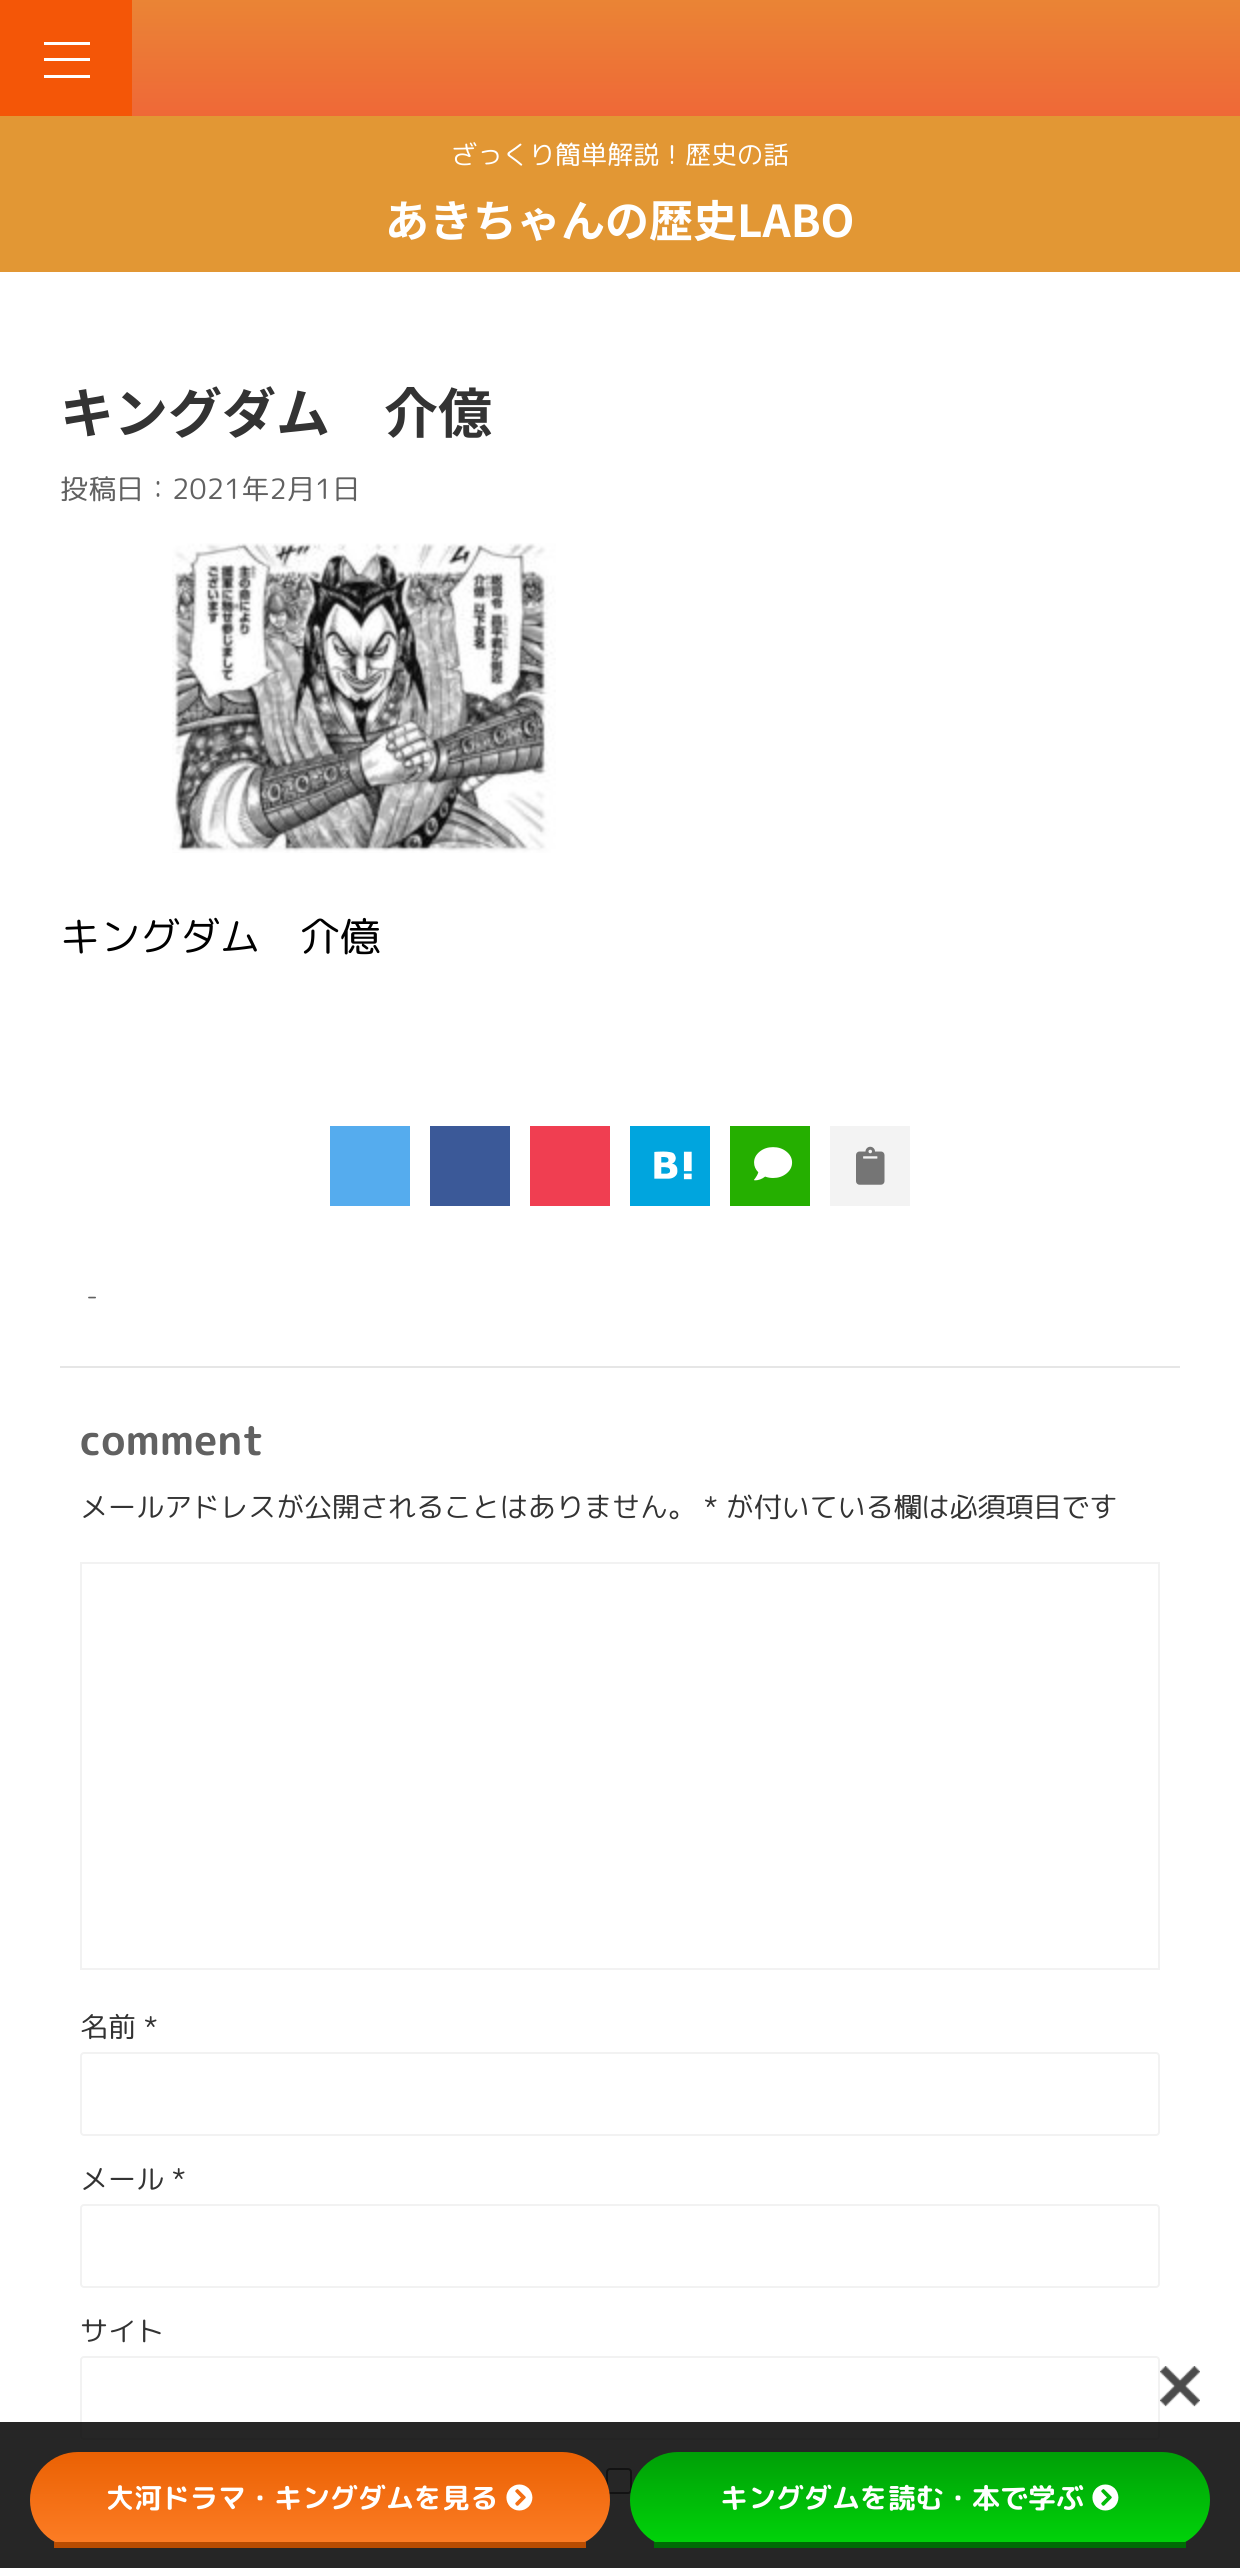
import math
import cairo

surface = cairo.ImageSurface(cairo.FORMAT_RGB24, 1240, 2568)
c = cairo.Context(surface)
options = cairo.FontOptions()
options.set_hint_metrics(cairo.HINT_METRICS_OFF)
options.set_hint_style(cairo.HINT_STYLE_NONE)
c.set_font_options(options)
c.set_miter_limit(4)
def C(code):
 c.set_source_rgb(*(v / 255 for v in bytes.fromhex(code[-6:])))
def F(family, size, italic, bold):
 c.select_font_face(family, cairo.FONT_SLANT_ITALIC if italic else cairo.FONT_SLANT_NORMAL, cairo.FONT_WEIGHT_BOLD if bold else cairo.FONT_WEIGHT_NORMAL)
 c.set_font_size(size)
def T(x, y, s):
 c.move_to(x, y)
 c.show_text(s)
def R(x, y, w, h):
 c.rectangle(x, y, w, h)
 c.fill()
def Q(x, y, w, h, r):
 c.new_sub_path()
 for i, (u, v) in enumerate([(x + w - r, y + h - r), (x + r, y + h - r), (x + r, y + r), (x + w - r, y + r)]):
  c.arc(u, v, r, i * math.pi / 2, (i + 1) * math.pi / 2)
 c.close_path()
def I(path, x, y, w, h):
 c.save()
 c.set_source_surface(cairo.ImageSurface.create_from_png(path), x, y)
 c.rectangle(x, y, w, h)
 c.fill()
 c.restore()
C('e29734')
c.paint()
gradient = cairo.LinearGradient(620,0,620,116)
gradient.add_color_stop_rgba(0,0.918,0.518,0.208,1)
gradient.add_color_stop_rgba(1,0.937,0.408,0.216,1)
c.set_source(gradient)
R(132,0,1108,116)
C('f45607')
R(0,0,132,116)
C('ffffff')
c.new_path()
c.move_to(44,42)
c.line_to(90,42)
c.line_to(90,45)
c.line_to(44,45)
c.close_path()
c.move_to(44,75)
c.line_to(90,75)
c.line_to(90,78)
c.line_to(44,78)
c.close_path()
c.move_to(44,58)
c.line_to(90,58)
c.line_to(90,61)
c.line_to(44,61)
c.close_path()
c.fill()
F('Rounded Mplus 1c',26,0,0)
T(451,164,'ざっくり簡単解説！歴史の話')
F('Noto Sans JP',44,0,1)
T(385,237,'あきちゃんの歴史LABO')
R(0,272,1240,2296)
F('Noto Sans JP',54,0,1)
C('333333')
T(60,433,'キングダム　介億')
F('Rounded Mplus 1c',28,0,0)
C('616161')
T(60,499,'投稿日：2021年2月1日')
I('1.png',172,543,384,310)
F('Rounded Mplus 1c',40,0,0)
C('000000')
T(60,951,'キングダム　介億')
C('55acee')
R(330,1126,80,80)
C('3b5998')
R(430,1126,80,80)
C('f03e51')
R(530,1126,80,80)
C('00a5de')
R(630,1126,80,80)
I('2.png',654,1151,38,29)
C('25af00')
R(730,1126,80,80)
I('3.png',754,1147,39,34)
C('f3f3f3')
R(830,1126,80,80)
I('4.png',856,1146,29,39)
F('Rounded Mplus 1c',26,0,0)
C('616161')
T(86,1305,'-')
C('e6e6e6')
R(60,1366,1120,2)
F('Rounded Mplus 1c Bold',42,0,1)
C('616161')
T(80,1455,'comment')
F('Rounded Mplus 1c',28,0,0)
C('333333')
T(80,1517,'メールアドレスが公開されることはありません。 * が付いている欄は必須項目です')
c.rectangle(81,1563,1078,406)
C('f2f2f2')
c.stroke()
C('333333')
T(80,2037,'名前 *')
Q(81,2053,1078,82,3)
C('f2f2f2')
c.stroke()
C('333333')
T(80,2189,'メール *')
Q(81,2205,1078,82,3)
C('f2f2f2')
c.stroke()
C('333333')
T(80,2341,'サイト')
Q(81,2357,1078,82,3)
C('f2f2f2')
c.stroke()
Q(607,2469,24,24,3)
C('767676')
c.stroke()
c.set_source_rgba(0,0,0,0.85)
R(0,2422,1240,146)
I('5.png',1160,2366,40,41)
c.save()
Q(30,2452,580,96,48)
c.clip()
gradient = cairo.LinearGradient(320,2452,320,2542)
gradient.add_color_stop_rgba(0,0.918,0.38,0.012,1)
gradient.add_color_stop_rgba(1,0.988,0.486,0.141,1)
c.set_source(gradient)
c.new_path()
c.move_to(78,2452)
c.line_to(562,2452)
c.curve_to(588.5,2452,610,2473.5,610,2500)
c.line_to(610,2542)
c.line_to(30,2542)
c.line_to(30,2500)
c.curve_to(30,2473.5,51.5,2452,78,2452)
c.close_path()
c.fill()
c.restore()
C('b84c02')
R(54,2542,532,6)
F('Rounded Mplus 1c Bold',28,0,1)
C('ffffff')
T(106,2508,'大河ドラマ・キングダムを見る')
I('6.png',506,2484,27,27)
c.save()
Q(630,2452,580,96,48)
c.clip()
gradient = cairo.LinearGradient(920,2452,920,2542)
gradient.add_color_stop_rgba(0,0,0.624,0.027,1)
gradient.add_color_stop_rgba(1,0,0.824,0.035,1)
c.set_source(gradient)
c.new_path()
c.move_to(678,2452)
c.line_to(1162,2452)
c.curve_to(1188.5,2452,1210,2473.5,1210,2500)
c.line_to(1210,2542)
c.line_to(630,2542)
c.line_to(630,2500)
c.curve_to(630,2473.5,651.5,2452,678,2452)
c.close_path()
c.fill()
c.restore()
C('006c05')
R(654,2542,532,6)
C('ffffff')
T(720,2508,'キングダムを読む・本で学ぶ')
I('7.png',1092,2484,27,27)
surface.write_to_png('o.png')
